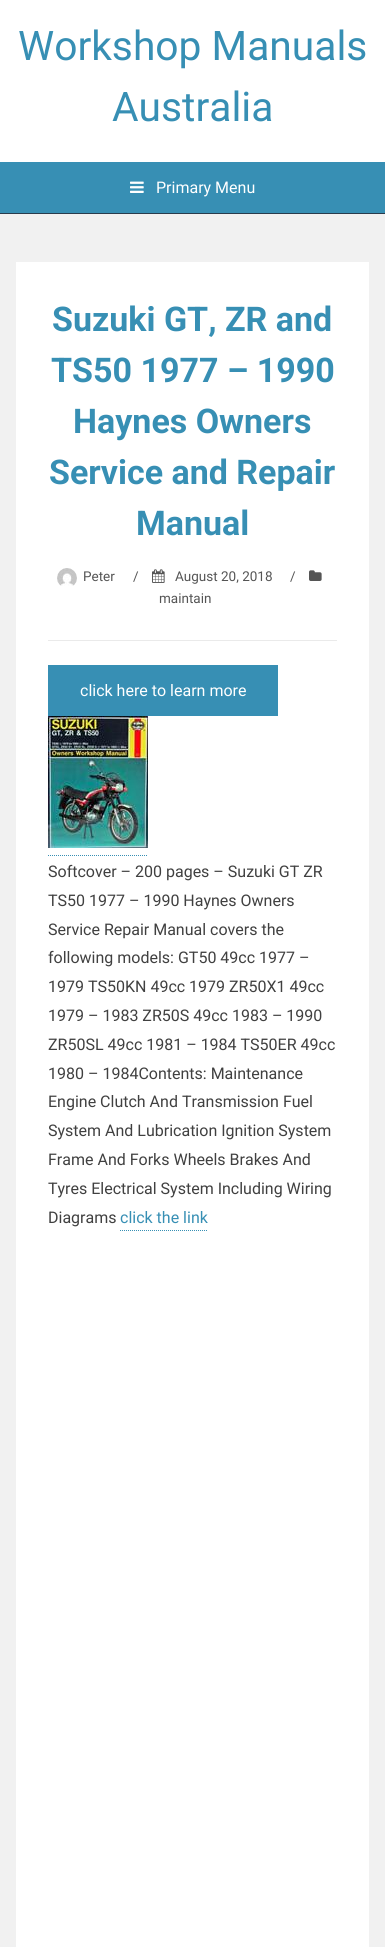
import math
import cairo

surface = cairo.ImageSurface(cairo.FORMAT_RGB24, 385, 1947)
c = cairo.Context(surface)
options = cairo.FontOptions()
options.set_hint_metrics(cairo.HINT_METRICS_OFF)
options.set_hint_style(cairo.HINT_STYLE_NONE)
c.set_font_options(options)
c.set_miter_limit(4)
def C(code):
 c.set_source_rgb(*(v / 255 for v in bytes.fromhex(code[-6:])))
def F(family, size, italic, bold):
 c.select_font_face(family, cairo.FONT_SLANT_ITALIC if italic else cairo.FONT_SLANT_NORMAL, cairo.FONT_WEIGHT_BOLD if bold else cairo.FONT_WEIGHT_NORMAL)
 c.set_font_size(size)
def T(x, y, s):
 c.move_to(x, y)
 c.show_text(s)
def R(x, y, w, h):
 c.rectangle(x, y, w, h)
 c.fill()
def I(path, x, y, w, h):
 c.save()
 c.set_source_surface(cairo.ImageSurface.create_from_png(path), x, y)
 c.rectangle(x, y, w, h)
 c.fill()
 c.restore()
C('f1f1f1')
c.paint()
C('ffffff')
R(0,0,385,162)
F('Roboto',40.75,0,0)
C('378fb4')
T(18,60,'Workshop Manuals')
T(112,121,'Australia')
R(0,162,385,51)
C('293b4c')
R(0,213,385,1)
I('1.png',130,181,14,12)
F('Roboto',16,0,0)
C('ffffff')
T(156,193,'Primary Menu')
R(16,262,353,1685)
C('eaeaea')
R(48,640,289,1)
F('Roboto',34,0,1)
C('378fb4')
T(52,331,'Suzuki GT, ZR and')
T(51,382,'TS50 1977 – 1990')
T(73,433,'Haynes Owners')
T(49,484,'Service and Repair')
T(136,535,'Manual')
I('2.png',57,568,20,18)
F('Roboto',13.5,0,0)
C('555555')
T(83,581,'Peter')
T(133,581,'/')
I('3.png',152,569,13,14)
T(175,581,'August 20, 2018')
T(290,581,'/')
I('4.png',309,570,13,11)
T(159,603,'maintain')
C('378fb4')
R(48,665,230,51)
F('Roboto',16,0,0)
C('ffffff')
T(80,696,'click here to learn more')
I('5.png',48,716,100,132)
c.new_path()
c.move_to(48,855.5)
c.line_to(148,855.5)
C('378fb4')
c.set_line_width(1)
c.set_dash([1,1])
c.stroke()
C('404040')
T(48,877,'Softcover – 200 pages – Suzuki GT ZR')
T(48,906,'TS50 1977 – 1990 Haynes Owners')
T(48,935,'Service Repair Manual covers the')
T(48,963,'following models: GT50 49cc 1977 –')
T(48,992,'1979 TS50KN 49cc 1979 ZR50X1 49cc')
T(48,1021,'1979 – 1983 ZR50S 49cc 1983 – 1990')
T(48,1050,'ZR50SL 49cc 1981 – 1984 TS50ER 49cc')
T(48,1079,'1980 – 1984Contents: Maintenance')
T(48,1107,'Engine Clutch And Transmission Fuel')
T(48,1136,'System And Lubrication Ignition System')
T(48,1165,'Frame And Forks Wheels Brakes And')
T(48,1194,'Tyres Electrical System Including Wiring')
T(48,1223,'Diagrams')
C('378fb4')
T(120,1223,'click the link')
c.new_path()
c.move_to(120,1230.5)
c.line_to(208,1230.5)
c.stroke()
surface.write_to_png('o.png')
